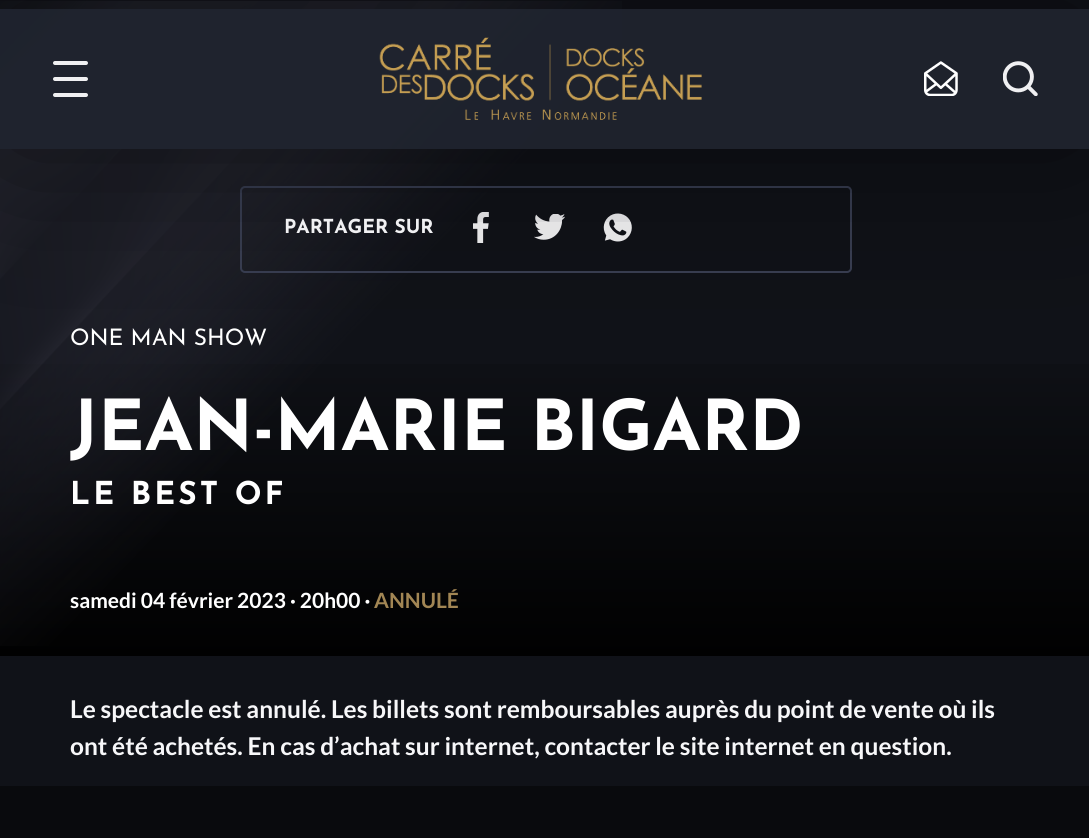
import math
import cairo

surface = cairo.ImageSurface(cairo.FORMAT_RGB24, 1089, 838)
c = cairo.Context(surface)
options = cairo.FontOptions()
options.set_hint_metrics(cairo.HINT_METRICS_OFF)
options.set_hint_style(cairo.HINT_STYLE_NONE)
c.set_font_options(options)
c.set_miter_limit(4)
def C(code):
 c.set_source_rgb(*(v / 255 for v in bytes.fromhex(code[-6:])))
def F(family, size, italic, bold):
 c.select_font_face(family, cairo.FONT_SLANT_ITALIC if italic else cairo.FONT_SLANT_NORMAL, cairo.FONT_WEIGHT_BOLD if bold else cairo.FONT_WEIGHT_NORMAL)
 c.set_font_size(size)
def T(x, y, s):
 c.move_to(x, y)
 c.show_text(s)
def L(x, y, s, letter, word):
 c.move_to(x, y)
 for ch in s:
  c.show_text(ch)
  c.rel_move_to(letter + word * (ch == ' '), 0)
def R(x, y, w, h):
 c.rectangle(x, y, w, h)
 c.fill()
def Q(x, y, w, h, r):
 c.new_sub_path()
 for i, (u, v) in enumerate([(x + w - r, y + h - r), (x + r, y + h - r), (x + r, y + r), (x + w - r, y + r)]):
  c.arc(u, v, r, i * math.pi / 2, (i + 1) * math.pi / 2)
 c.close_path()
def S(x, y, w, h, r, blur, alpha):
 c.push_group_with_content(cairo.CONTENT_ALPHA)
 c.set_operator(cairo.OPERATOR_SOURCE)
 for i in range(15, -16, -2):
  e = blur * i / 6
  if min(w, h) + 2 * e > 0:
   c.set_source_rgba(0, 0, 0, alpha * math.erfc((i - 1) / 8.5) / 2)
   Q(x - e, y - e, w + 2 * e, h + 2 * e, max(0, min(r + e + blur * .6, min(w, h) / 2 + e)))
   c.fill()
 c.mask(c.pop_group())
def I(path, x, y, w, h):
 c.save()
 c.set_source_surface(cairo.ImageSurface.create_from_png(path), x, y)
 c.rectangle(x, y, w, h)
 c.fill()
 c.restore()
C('101218')
c.paint()
gradient = cairo.LinearGradient(545,0,545,656)
gradient.add_color_stop_rgba(.5,0.063,0.071,0.094,1)
gradient.add_color_stop_rgba(1,0.004,0.004,0.004,1)
c.set_source(gradient)
R(0,364,1089,292)
I('4.png',0,0,622,646)
Q(241,187,610,85,4)
C('393f53')
c.stroke()
I('5.png',473,212,16,31)
I('6.png',534,214,31,26)
I('7.png',603,213,29,29)
c.save()
c.set_fill_rule(cairo.FILL_RULE_EVEN_ODD)
c.new_path()
c.move_to(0,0)
c.line_to(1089,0)
c.line_to(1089,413)
c.line_to(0,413)
c.close_path()
c.move_to(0,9)
c.line_to(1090,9)
c.line_to(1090,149)
c.line_to(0,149)
c.close_path()
c.clip()
C('000000')
S(0,9,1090,140,0,87.5,.5)
c.restore()
c.set_source_rgba(0.125,0.141,0.184,0.9)
R(0,9,1089,140)
C('f0f0f2')
Q(53,61,35,4,2)
c.fill()
Q(53,77,35,4,2)
c.fill()
Q(53,93,35,4,2)
c.fill()
I('1.png',379,37,323,83)
I('2.png',924,61,34,35)
I('3.png',1003,61,35,35)
F('Josefin Sans',19.25,0,1)
T(284,233,'PARTAGER SUR')
F('Josefin Sans',22.75,0,0)
C('ffffff')
T(70,345,'ONE MAN SHOW')
F('Josefin Sans',70,0,1)
T(70,450,'JEAN-MARIE BIGARD')
F('Josefin Sans',31.5,0,1)
L(70,504,'LE BEST OF',3.1,0)
F('Lato',21,0,1)
T(70,608,'samedi 04 février 2023 · 20h00 ·')
C('a28654')
T(374,608,'ANNULÉ')
F('Lato',24.5,0,1)
C('f7f7f9')
T(70,718,'Le spectacle est annulé. Les billets sont remboursables auprès du point de vente où ils')
T(70,755,'ont été achetés. En cas d’achat sur internet, contacter le site internet en question.')
C('090a0d')
R(0,786,1089,52)
surface.write_to_png('o.png')
